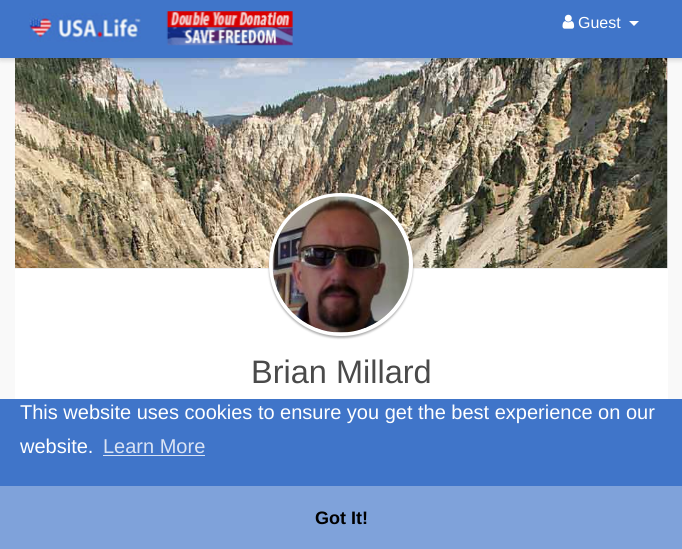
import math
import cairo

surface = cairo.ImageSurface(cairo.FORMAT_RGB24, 682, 549)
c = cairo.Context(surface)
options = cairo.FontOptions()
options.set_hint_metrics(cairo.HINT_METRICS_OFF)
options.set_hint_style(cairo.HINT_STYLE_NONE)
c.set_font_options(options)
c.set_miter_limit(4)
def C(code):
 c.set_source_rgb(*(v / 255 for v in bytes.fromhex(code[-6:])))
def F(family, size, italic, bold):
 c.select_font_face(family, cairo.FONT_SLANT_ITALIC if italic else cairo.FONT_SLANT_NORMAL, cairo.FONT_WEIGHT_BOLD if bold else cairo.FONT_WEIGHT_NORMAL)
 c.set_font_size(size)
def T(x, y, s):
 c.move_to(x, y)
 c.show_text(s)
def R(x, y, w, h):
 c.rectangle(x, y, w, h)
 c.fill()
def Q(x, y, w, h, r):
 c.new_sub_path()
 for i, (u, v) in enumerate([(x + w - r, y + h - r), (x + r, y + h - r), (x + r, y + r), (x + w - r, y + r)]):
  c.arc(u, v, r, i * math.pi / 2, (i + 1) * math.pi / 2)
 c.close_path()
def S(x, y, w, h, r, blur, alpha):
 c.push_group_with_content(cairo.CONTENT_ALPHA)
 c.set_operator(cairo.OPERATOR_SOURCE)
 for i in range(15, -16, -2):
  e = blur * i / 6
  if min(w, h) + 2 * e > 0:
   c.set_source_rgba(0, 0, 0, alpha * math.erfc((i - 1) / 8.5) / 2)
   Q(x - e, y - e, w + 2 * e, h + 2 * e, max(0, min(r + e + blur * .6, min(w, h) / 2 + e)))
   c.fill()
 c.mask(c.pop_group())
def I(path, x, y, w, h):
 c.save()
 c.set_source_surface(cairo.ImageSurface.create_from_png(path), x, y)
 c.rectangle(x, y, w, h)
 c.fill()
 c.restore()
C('f9f9f9')
c.paint()
C('ffffff')
R(667,58,1,210)
I('4.png',15,58,653,210)
C('000000')
S(0,3,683,57,0,2.5,.15)
C('4075c9')
R(0,0,682,58)
I('1.png',29,13,112,29)
I('2.png',166,11,127,35)
I('3.png',562,14,13,15)
F('Liberation Sans',16,0,0)
C('ffffff')
T(578,28,'Guest')
c.new_path()
c.move_to(629,21)
c.line_to(639,21)
c.line_to(634,26)
c.close_path()
c.fill()
C('f1f1f1')
R(15,268,653,1)
C('ffffff')
R(15,269,653,130)
C('444444')
S(269,194,144,144,72,1,.42)
Q(271,195,140,139,69.5)
C('ffffff')
c.set_line_width(4)
c.stroke()
I('5.png',272,196,137,137)
F('Liberation Sans',32.5,0,0)
C('4a4a4a')
T(251,383,'Brian Millard')
C('4075c9')
R(0,399,682,87)
F('Liberation Sans',20,0,0)
C('ffffff')
T(20,419,'This website uses cookies to ensure you get the best experience on our')
T(20,453,'website.')
C('d9e3f4')
T(103,453,'Learn More')
R(103,455,102,1)
C('7fa2da')
R(0,486,682,63)
F('Liberation Sans',18,0,1)
C('000000')
T(315,524,'Got It!')
surface.write_to_png('o.png')
